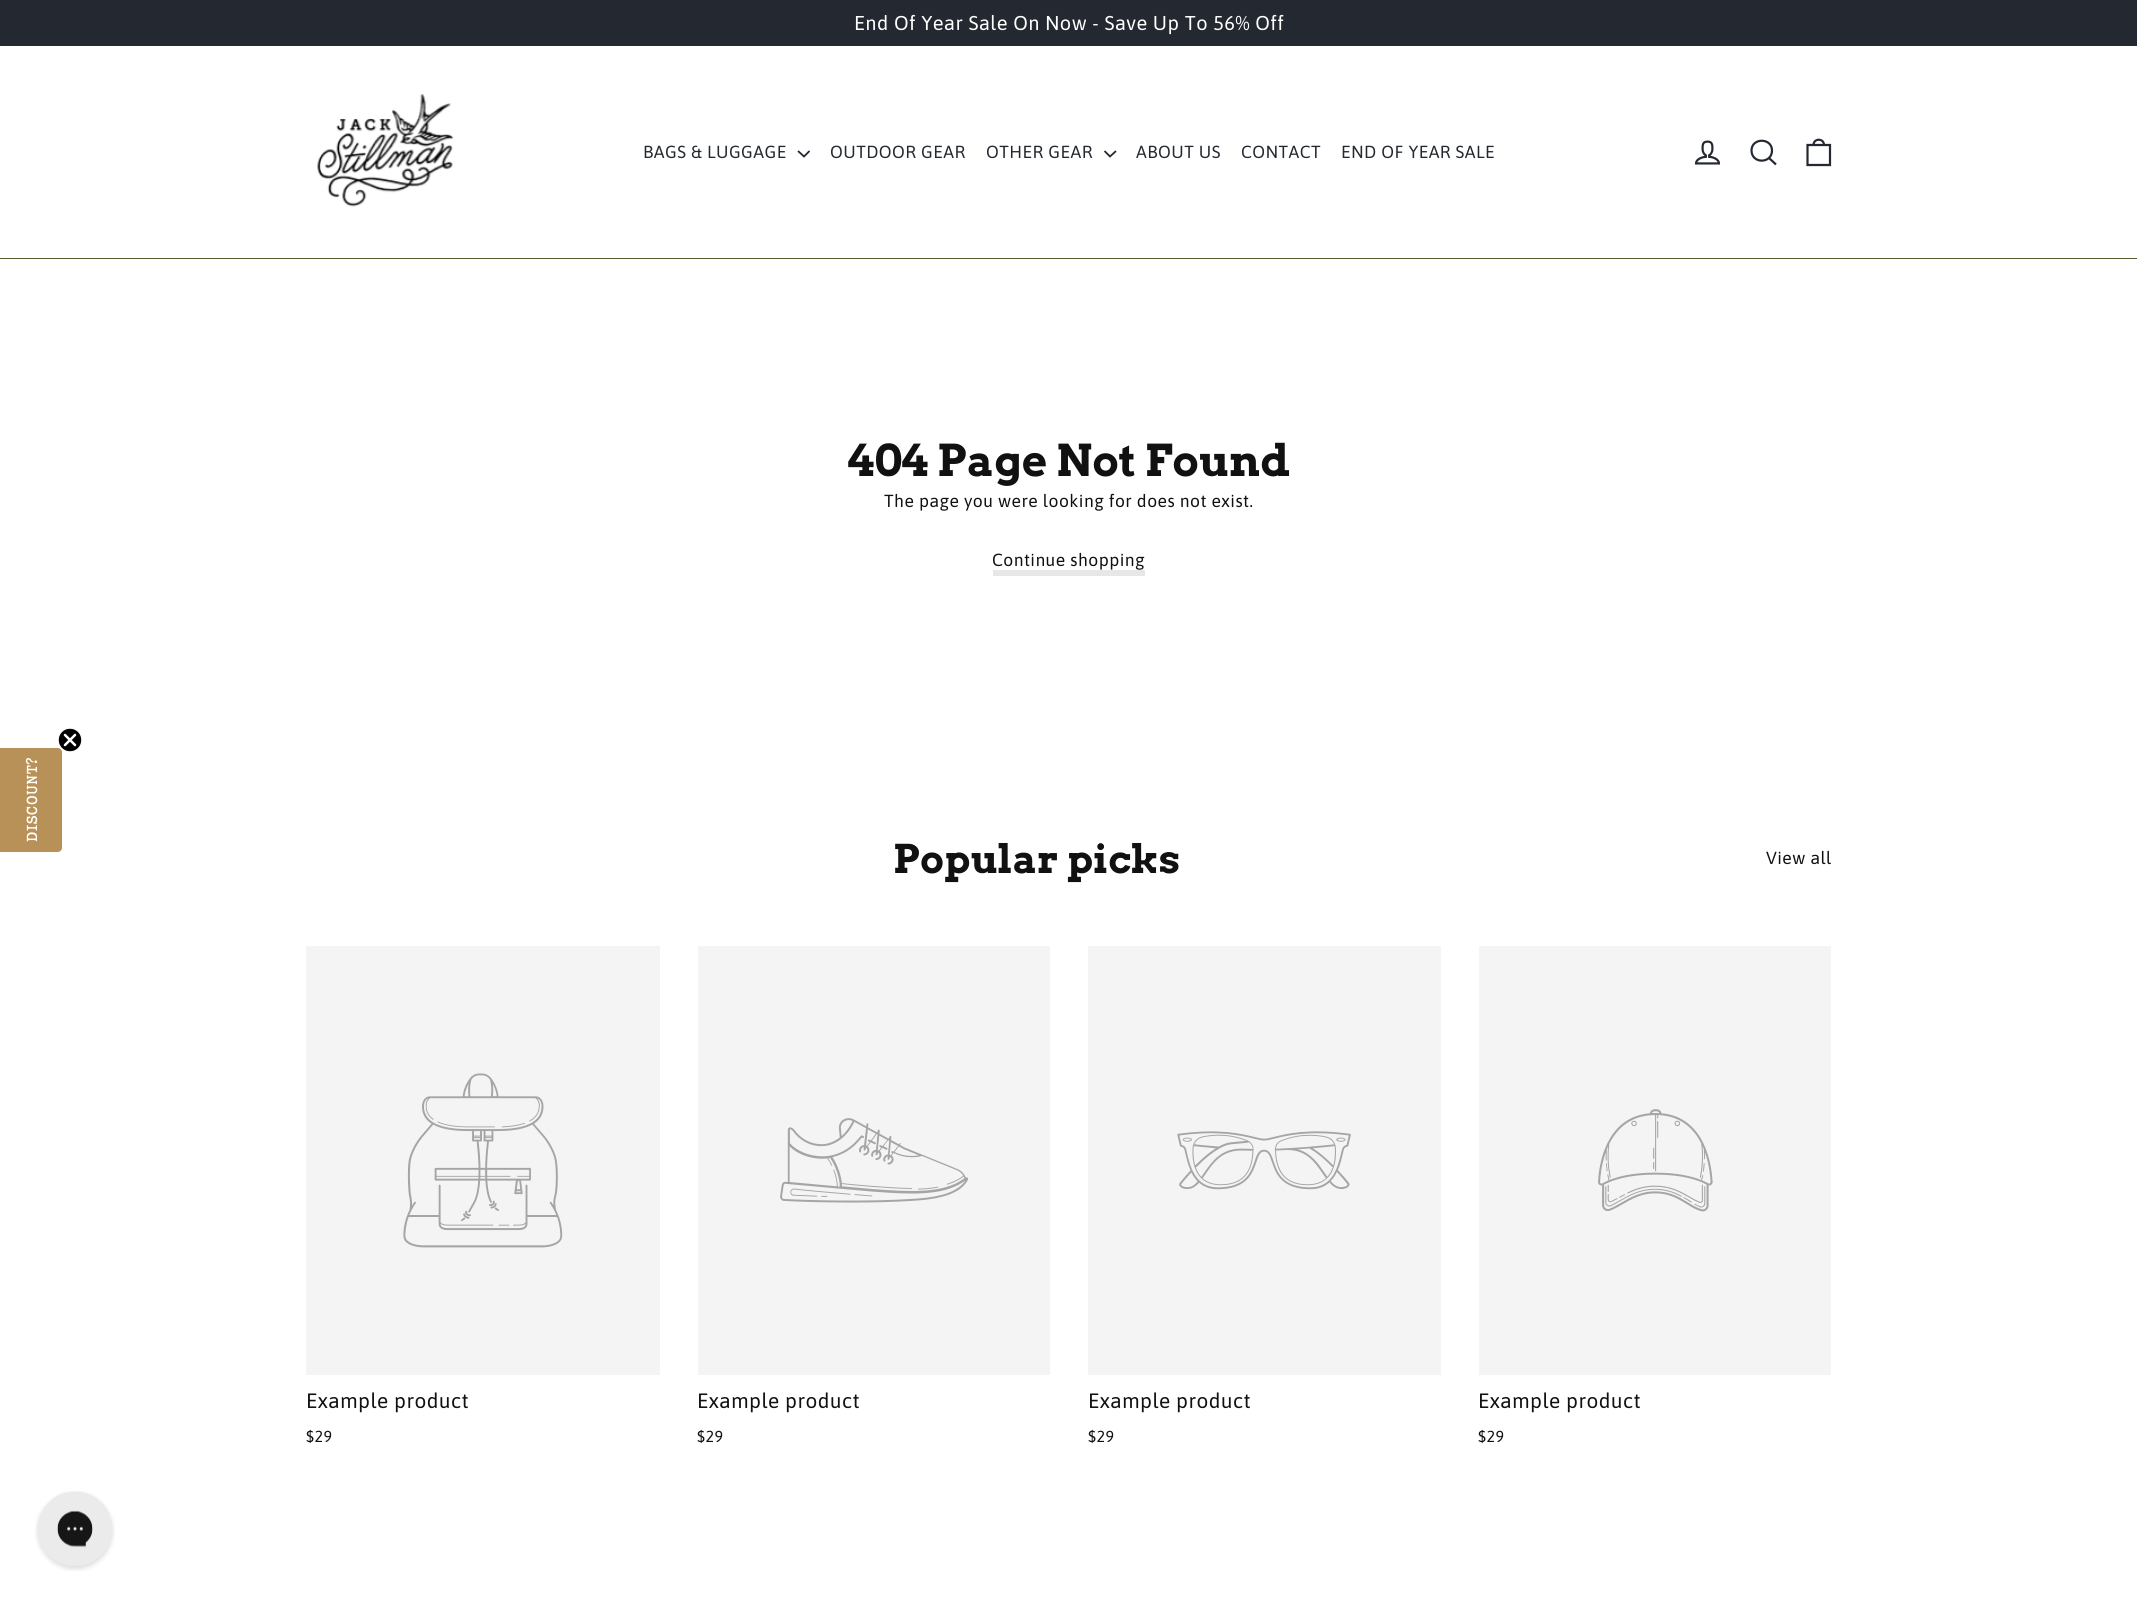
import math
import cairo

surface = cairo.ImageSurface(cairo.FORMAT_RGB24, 2137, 1600)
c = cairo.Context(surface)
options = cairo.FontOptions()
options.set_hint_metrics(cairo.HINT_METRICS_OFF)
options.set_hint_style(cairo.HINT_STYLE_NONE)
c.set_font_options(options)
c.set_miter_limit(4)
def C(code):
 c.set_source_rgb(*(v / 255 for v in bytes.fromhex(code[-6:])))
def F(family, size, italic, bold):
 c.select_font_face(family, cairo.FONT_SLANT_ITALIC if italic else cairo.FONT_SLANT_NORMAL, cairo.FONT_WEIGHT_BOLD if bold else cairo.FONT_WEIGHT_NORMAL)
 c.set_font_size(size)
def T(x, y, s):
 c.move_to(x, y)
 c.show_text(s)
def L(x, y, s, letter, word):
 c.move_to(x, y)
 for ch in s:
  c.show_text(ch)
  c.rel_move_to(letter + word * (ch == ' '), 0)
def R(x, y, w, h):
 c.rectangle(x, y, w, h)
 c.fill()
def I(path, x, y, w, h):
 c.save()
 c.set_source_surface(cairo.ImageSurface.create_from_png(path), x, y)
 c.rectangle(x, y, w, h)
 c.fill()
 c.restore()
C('ffffff')
c.paint()
C('b89158')
c.new_path()
c.move_to(0,852)
c.line_to(0,748)
c.line_to(58,748)
c.curve_to(60,748,62,750,62,752)
c.line_to(62,848)
c.curve_to(62,850,60,852,58,852)
c.close_path()
c.fill()
I('1.png',58,728,24,24)
F('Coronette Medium',15,0,0)
C('ffffff')
c.save()
c.translate(37,842)
c.rotate(-90 * math.pi / 180)
L(0,0,'DISCOUNT?',.45,0)
c.restore()
C('242931')
R(0,0,2137,46)
F('Asap',20,0,0)
C('ffffff')
L(854,30,'End Of Year Sale On Now - Save Up To 56% Off',.45,0)
C('525e2d')
R(0,258,2137,1)
I('2.png',317,94,137,113)
F('Asap',17.5,0,0)
C('242931')
L(643,158,'BAGS & LUGGAGE',.45,0)
c.new_path()
c.move_to(798,151)
c.line_to(804,156.5)
c.line_to(809.5,151)
c.set_line_width(1.8)
c.stroke()
L(830,158,'OUTDOOR GEAR',.45,0)
L(986,158,'OTHER GEAR',.45,0)
c.new_path()
c.move_to(1104.5,151)
c.line_to(1110,156.5)
c.line_to(1116,151)
c.stroke()
L(1136,158,'ABOUT US',.45,0)
L(1241,158,'CONTACT',.45,0)
L(1341,158,'END OF YEAR SALE',.45,0)
I('3.png',1694,140,27,25)
c.new_path()
c.move_to(1772,150.5)
c.curve_to(1772,164,1751.5,164,1751.5,150.5)
c.curve_to(1751.5,137.5,1772,137.5,1772,150.5)
c.close_path()
c.move_to(1776,164.5)
c.line_to(1769,158)
c.set_line_width(2.2)
c.stroke()
c.new_path()
c.move_to(1807.5,145)
c.line_to(1830,145)
c.line_to(1830,165)
c.line_to(1807.5,165)
c.close_path()
c.move_to(1813.5,145)
c.curve_to(1813.5,138,1824,138,1824,145)
c.stroke()
F('Arvo',43.75,0,1)
C('111111')
T(848,476,'404 Page Not Found')
F('Asap',17.5,0,0)
L(884,507,'The page you were looking for does not exist.',.45,0)
L(992,566,'Continue shopping',.45,0)
C('e7e7e7')
R(993,570,152,6)
F('Arvo',39.5,0,1)
C('111111')
T(893,873,'Popular picks')
F('Asap',17.5,0,0)
L(1766,864,'View all',.45,0)
C('f4f4f4')
R(306,946,354,429)
I('4.png',403,1073,160,175)
F('Asap',20.75,0,0)
C('111111')
L(306,1408,'Example product',.45,0)
F('Asap',16,0,0)
L(306,1442,'$29',.45,0)
C('f4f4f4')
R(698,946,352,429)
I('5.png',780,1118,188,85)
F('Asap',20.75,0,0)
C('111111')
L(697,1408,'Example product',.45,0)
F('Asap',16,0,0)
L(697,1442,'$29',.45,0)
C('f4f4f4')
R(1088,946,353,429)
I('6.png',1177,1131,174,59)
F('Asap',20.75,0,0)
C('111111')
L(1088,1408,'Example product',.45,0)
F('Asap',16,0,0)
L(1088,1442,'$29',.45,0)
C('f4f4f4')
R(1479,946,352,429)
I('7.png',1598,1109,115,103)
F('Asap',20.75,0,0)
C('111111')
L(1478,1408,'Example product',.45,0)
F('Asap',16,0,0)
L(1478,1442,'$29',.45,0)
I('8.png',35,1491,80,80)
surface.write_to_png('o.png')
